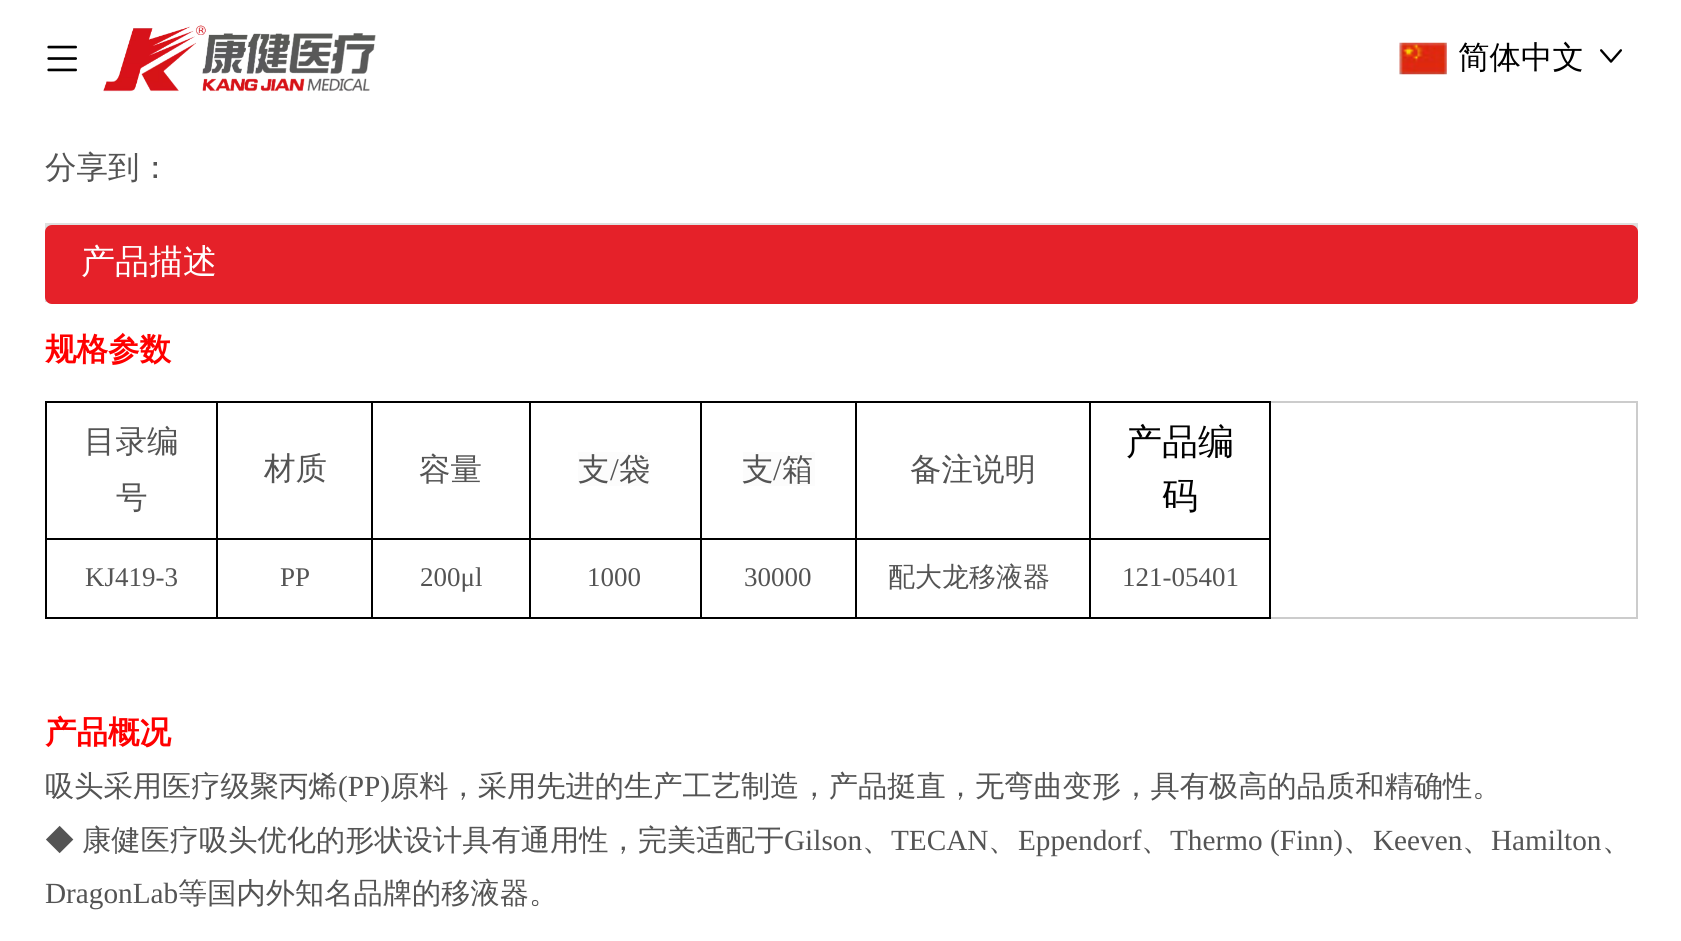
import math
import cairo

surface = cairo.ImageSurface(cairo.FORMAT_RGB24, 1681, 941)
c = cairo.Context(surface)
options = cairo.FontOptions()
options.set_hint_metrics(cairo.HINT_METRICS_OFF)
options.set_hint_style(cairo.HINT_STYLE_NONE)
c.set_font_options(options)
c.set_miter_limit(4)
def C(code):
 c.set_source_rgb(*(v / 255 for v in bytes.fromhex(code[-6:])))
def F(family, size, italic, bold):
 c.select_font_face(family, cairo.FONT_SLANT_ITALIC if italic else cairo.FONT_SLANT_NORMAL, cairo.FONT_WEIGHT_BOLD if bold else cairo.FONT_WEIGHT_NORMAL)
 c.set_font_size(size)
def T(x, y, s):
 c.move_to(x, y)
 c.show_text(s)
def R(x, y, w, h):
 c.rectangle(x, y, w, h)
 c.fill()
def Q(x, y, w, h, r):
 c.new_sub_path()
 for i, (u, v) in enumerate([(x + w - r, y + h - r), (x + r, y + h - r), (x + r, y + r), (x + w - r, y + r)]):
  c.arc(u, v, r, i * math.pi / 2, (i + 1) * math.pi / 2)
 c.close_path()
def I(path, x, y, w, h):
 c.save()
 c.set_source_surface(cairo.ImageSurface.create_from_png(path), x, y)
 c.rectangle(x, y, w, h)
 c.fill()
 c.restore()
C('ffffff')
c.paint()
I('1.png',47,45,30,27)
I('2.png',103,25,273,67)
I('3.png',1399,42,48,33)
F('WenQuanYi Zen Hei Medium',31.5,0,0)
C('000000')
T(1458,68,'简体中文')
I('4.png',1600,49,22,14)
C('545454')
T(45,178,'分享到：')
C('dfdfdf')
R(45,223,1593,2)
C('dddddd')
R(45,225,1593,77)
C('e52129')
Q(46,226,1591,77,6)
c.fill_preserve()
c.stroke()
F('WenQuanYi Zen Hei Medium',34,0,0)
C('ffffff')
T(81,273,'产品描述')
F('WenQuanYi Zen Hei',31.5,0,1)
C('ff0000')
T(45,360,'规格参数')
C('cccccc')
R(1271,401,367,2)
R(1636,401,2,218)
R(1271,617,367,2)
C('000000')
R(1089,401,182,2)
R(1089,538,182,2)
R(1269,538,2,81)
R(1089,617,182,2)
R(1089,538,2,81)
R(855,538,236,2)
R(1089,401,2,139)
R(855,401,236,2)
R(855,617,236,2)
R(855,538,2,81)
R(700,538,157,2)
R(855,401,2,139)
R(700,401,157,2)
R(700,617,157,2)
R(700,538,2,81)
R(529,538,173,2)
R(700,401,2,139)
R(529,401,173,2)
R(529,617,173,2)
R(529,538,2,81)
R(371,538,160,2)
R(529,401,2,139)
R(371,401,160,2)
R(371,617,160,2)
R(371,538,2,81)
R(216,538,158,2)
R(371,401,2,139)
R(216,401,158,2)
R(216,617,158,2)
R(216,538,2,81)
R(45,538,173,2)
R(216,401,2,139)
R(45,401,173,2)
R(45,617,173,2)
R(45,538,2,81)
R(45,401,2,139)
F('WenQuanYi Zen Hei Medium',31.5,0,0)
C('545454')
T(84,452,'目录编')
T(116,508,'号')
T(264,479,'材质')
T(419,480,'容量')
C('fcfcfc')
R(578,452,72,34)
C('545454')
T(578,480,'支')
F('Liberation Serif',31.5,0,0)
T(610,480,'/')
F('WenQuanYi Zen Hei Medium',31.5,0,0)
T(619,480,'袋')
C('fcfcfc')
R(743,452,72,34)
C('545454')
T(742,480,'支')
F('Liberation Serif',31.5,0,0)
T(773,480,'/')
F('WenQuanYi Zen Hei Medium',31.5,0,0)
T(782,480,'箱')
T(910,480,'备注说明')
C('000000')
R(1269,401,2,139)
F('WenQuanYi Zen Hei Medium',36,0,0)
T(1126,454,'产品编')
T(1162,508,'码')
F('Liberation Serif',27,0,0)
C('545454')
T(85,586,'KJ419-3')
T(280,586,'PP')
T(420,586,'200μl')
T(587,586,'1000')
T(744,586,'30000')
F('WenQuanYi Zen Hei Medium',27,0,0)
T(888,586,'配大龙移液器')
F('Liberation Serif',27,0,0)
T(1122,586,'121-05401')
F('WenQuanYi Zen Hei',31.5,0,1)
C('ff0000')
T(45,743,'产品概况')
F('WenQuanYi Zen Hei Medium',29.25,0,0)
C('545454')
T(45,796,'吸头采用医疗级聚丙烯')
F('Liberation Serif',29.25,0,0)
T(338,796,'(PP)')
F('WenQuanYi Zen Hei Medium',29.25,0,0)
T(390,796,'原料，采用先进的生产工艺制造，产品挺直，无弯曲变形，具有极高的品质和精确性。')
T(45,850,'◆')
T(82,850,'康健医疗吸头优化的形状设计具有通用性，完美适配于')
F('Liberation Serif',29.25,0,0)
T(784,850,'Gilson')
F('WenQuanYi Zen Hei Medium',29.25,0,0)
T(862,850,'、')
F('Liberation Serif',29.25,0,0)
T(891,850,'TECAN')
F('WenQuanYi Zen Hei Medium',29.25,0,0)
T(988,850,'、')
F('Liberation Serif',29.25,0,0)
T(1018,850,'Eppendorf')
F('WenQuanYi Zen Hei Medium',29.25,0,0)
T(1141,850,'、')
F('Liberation Serif',29.25,0,0)
T(1170,850,'Thermo (Finn)')
F('WenQuanYi Zen Hei Medium',29.25,0,0)
T(1343,850,'、')
F('Liberation Serif',29.25,0,0)
T(1373,850,'Keeven')
F('WenQuanYi Zen Hei Medium',29.25,0,0)
T(1462,850,'、')
F('Liberation Serif',29.25,0,0)
T(1491,850,'Hamilton')
F('WenQuanYi Zen Hei Medium',29.25,0,0)
T(1602,850,'、')
F('Liberation Serif',29.25,0,0)
T(45,903,'DragonLab')
F('WenQuanYi Zen Hei Medium',29.25,0,0)
T(178,903,'等国内外知名品牌的移液器。')
surface.write_to_png('o.png')
